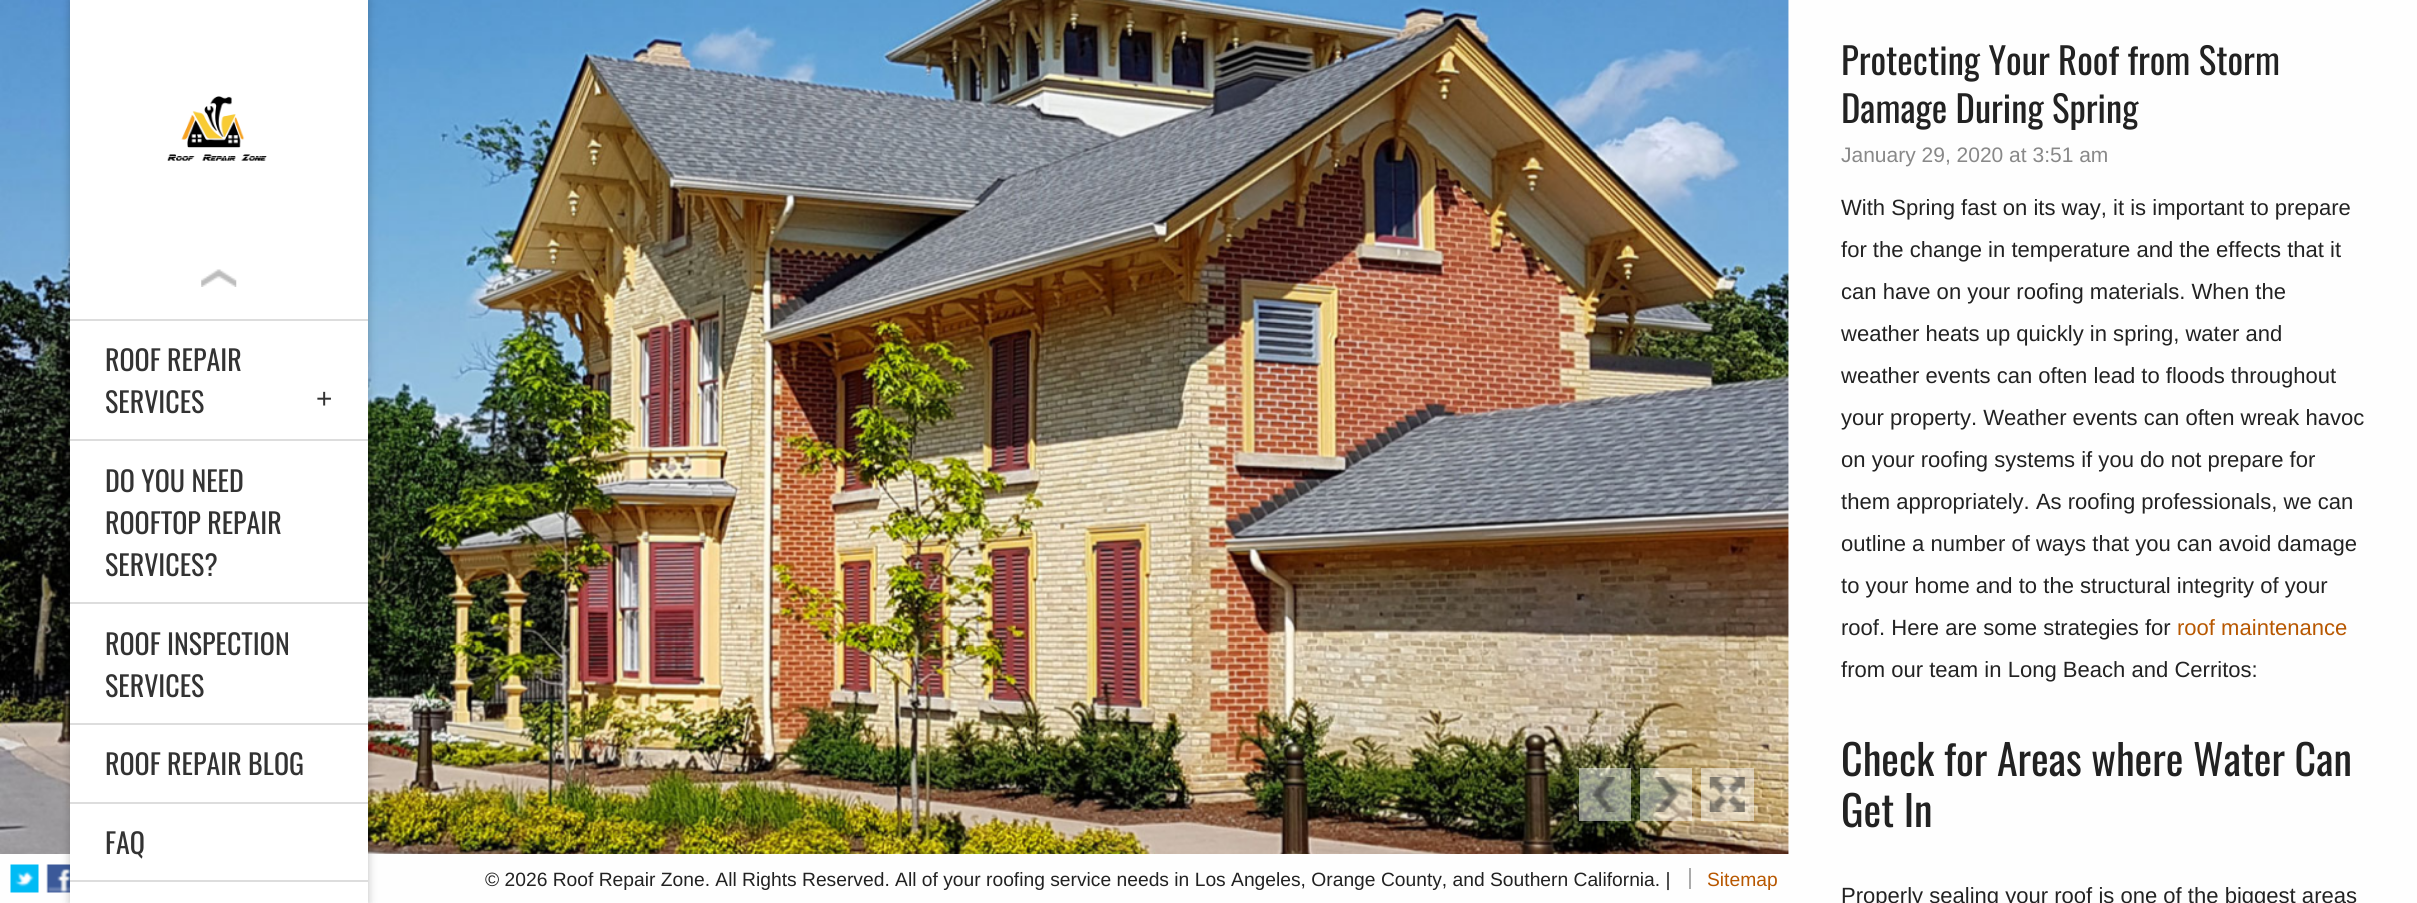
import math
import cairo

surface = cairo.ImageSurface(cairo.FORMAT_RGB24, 2417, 903)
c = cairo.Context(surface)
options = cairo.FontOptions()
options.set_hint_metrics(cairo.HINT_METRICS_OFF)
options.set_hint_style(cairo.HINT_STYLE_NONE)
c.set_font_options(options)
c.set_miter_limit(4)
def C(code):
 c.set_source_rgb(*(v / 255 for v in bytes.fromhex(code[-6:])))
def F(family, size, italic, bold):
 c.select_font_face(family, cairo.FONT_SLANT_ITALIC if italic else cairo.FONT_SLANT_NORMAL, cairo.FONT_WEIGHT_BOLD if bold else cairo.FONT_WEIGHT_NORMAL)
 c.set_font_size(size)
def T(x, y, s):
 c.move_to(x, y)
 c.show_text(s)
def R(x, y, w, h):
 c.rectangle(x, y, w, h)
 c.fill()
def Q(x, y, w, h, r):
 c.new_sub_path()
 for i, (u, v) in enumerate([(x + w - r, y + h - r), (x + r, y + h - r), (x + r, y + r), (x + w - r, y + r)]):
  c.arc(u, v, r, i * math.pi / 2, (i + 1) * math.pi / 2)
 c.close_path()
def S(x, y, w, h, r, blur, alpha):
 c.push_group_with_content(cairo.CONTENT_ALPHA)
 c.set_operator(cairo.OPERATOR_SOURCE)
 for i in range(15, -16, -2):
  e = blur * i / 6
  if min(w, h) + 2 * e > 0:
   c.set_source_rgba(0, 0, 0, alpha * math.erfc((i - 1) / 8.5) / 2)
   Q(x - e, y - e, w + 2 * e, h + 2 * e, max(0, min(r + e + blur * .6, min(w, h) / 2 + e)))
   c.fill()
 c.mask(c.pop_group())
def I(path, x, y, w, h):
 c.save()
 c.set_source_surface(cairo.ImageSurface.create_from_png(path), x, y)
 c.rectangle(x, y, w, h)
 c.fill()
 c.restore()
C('fefefe')
c.paint()
I('1.png',0,0,1789,854)
F('Oswald',36.75,0,0)
C('222222')
T(1841,75,'Protecting Your Roof from Storm')
T(1841,123,'Damage During Spring')
F('Liberation Sans',21,0,0)
C('888888')
T(1841,162,'January 29, 2020 at 3:51 am')
F('Liberation Sans',22.05,0,0)
C('222222')
T(1841,215,'With Spring fast on its way, it is important to prepare')
T(1841,257,'for the change in temperature and the effects that it')
T(1841,299,'can have on your roofing materials. When the')
T(1841,341,'weather heats up quickly in spring, water and')
T(1841,383,'weather events can often lead to floods throughout')
T(1841,425,'your property. Weather events can often wreak havoc')
T(1841,467,'on your roofing systems if you do not prepare for')
T(1841,509,'them appropriately. As roofing professionals, we can')
T(1841,551,'outline a number of ways that you can avoid damage')
T(1841,593,'to your home and to the structural integrity of your')
T(1841,635,'roof. Here are some strategies for')
C('b75700')
T(2177,635,'roof maintenance')
C('222222')
T(1841,677,'from our team in Long Beach and Cerritos:')
F('Oswald',42,0,0)
T(1841,776,'Check for Areas where Water Can')
T(1841,827,'Get In')
F('Liberation Sans',22.05,0,0)
T(1841,903,'Properly sealing your roof is one of the biggest areas')
I('8.png',46,864,24,29)
C('000000')
S(70,0,298,903,0,4.5,.25)
C('ffffff')
R(70,0,298,903)
I('2.png',167,96,100,65)
I('3.png',201,269,36,18)
C('dddddd')
R(70,319,298,2)
F('Oswald',28,0,0)
C('333333')
T(105,371,'ROOF REPAIR')
T(105,413,'SERVICES')
F('Liberation Sans',28,0,0)
T(316,408,'+')
C('dddddd')
R(70,439,298,2)
F('Oswald',28,0,0)
C('333333')
T(105,492,'DO YOU NEED')
T(105,534,'ROOFTOP REPAIR')
T(105,576,'SERVICES?')
C('dddddd')
R(70,602,298,2)
C('333333')
T(105,655,'ROOF INSPECTION')
T(105,697,'SERVICES')
C('dddddd')
R(70,723,298,2)
C('333333')
T(105,775,'ROOF REPAIR BLOG')
C('dddddd')
R(70,802,298,2)
C('333333')
T(105,854,'FAQ')
C('dddddd')
R(70,880,298,2)
c.set_source_rgba(1,1,1,0.5)
R(1579,768,52,53)
I('4.png',1592,777,24,35)
R(1640,768,52,53)
I('5.png',1655,777,24,35)
R(1701,768,53,53)
I('6.png',1709,777,36,35)
I('7.png',10,864,29,29)
F('Liberation Sans',19.25,0,0)
C('222222')
T(485,886,'© 2026 Roof Repair Zone. All Rights Reserved. All of your roofing service needs in Los Angeles, Orange County, and Southern California. |')
C('b75700')
T(1707,886,'Sitemap')
C('aaaaaa')
R(1689,868,2,21)
surface.write_to_png('o.png')
